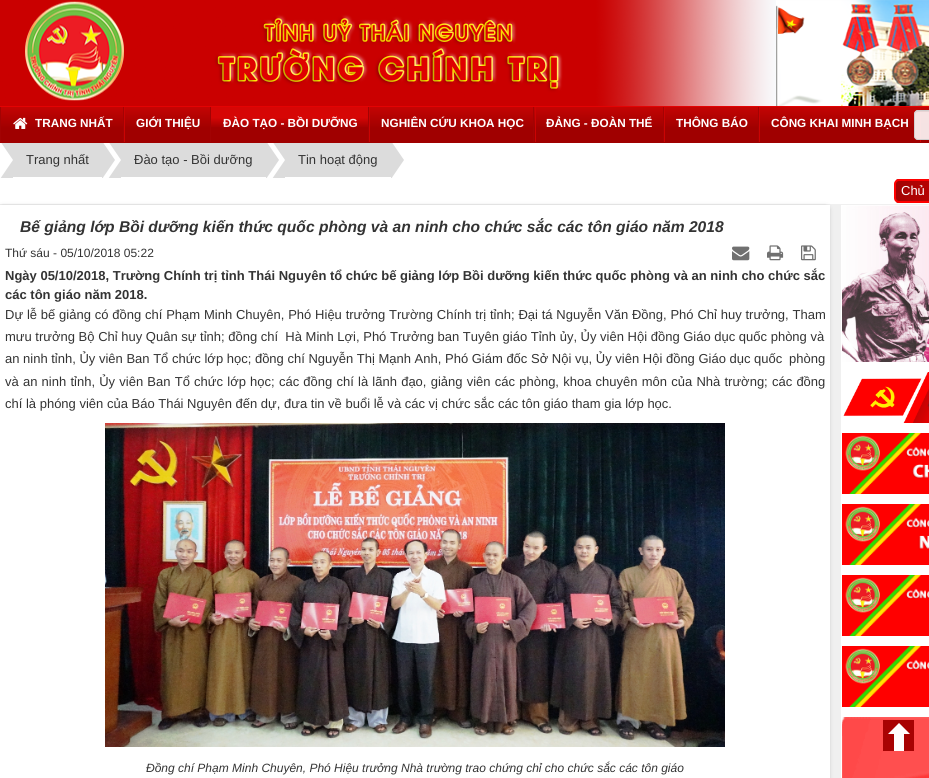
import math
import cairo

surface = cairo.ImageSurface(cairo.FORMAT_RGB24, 929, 778)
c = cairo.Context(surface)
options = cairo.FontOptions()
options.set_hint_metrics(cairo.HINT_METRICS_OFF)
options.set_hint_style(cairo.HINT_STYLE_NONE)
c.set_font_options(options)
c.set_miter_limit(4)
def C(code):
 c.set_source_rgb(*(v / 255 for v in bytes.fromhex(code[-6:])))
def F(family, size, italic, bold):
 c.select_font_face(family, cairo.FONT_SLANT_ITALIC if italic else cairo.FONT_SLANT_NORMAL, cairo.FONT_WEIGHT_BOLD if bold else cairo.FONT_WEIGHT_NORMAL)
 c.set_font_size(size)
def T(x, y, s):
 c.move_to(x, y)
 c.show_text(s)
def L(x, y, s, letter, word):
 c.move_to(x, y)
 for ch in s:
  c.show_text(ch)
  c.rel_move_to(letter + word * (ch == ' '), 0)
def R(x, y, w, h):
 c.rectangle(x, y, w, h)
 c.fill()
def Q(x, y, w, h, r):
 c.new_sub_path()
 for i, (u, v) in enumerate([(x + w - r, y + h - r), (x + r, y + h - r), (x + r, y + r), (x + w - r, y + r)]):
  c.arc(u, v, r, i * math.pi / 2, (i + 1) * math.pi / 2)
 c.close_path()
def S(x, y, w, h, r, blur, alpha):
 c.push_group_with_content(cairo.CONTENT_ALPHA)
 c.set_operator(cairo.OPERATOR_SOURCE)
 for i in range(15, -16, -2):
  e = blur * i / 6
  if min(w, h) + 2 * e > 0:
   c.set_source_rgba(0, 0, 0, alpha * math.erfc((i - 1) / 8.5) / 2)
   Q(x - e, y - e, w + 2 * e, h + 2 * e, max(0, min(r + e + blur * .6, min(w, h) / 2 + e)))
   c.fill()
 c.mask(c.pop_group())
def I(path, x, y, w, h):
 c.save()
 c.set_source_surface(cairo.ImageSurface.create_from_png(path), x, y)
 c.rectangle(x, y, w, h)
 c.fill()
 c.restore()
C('f0f0f0')
c.paint()
I('1.png',0,0,929,106)
I('2.png',25,1,99,100)
I('3.png',777,7,28,27)
gradient = cairo.LinearGradient(561,96,561,143)
gradient.add_color_stop_rgba(0,0.839,0.024,0.02,1)
gradient.add_color_stop_rgba(.69,0.627,0,0,1)
c.set_source(gradient)
R(0,107,929,36)
C('e40303')
R(0,106,929,1)
C('cb0303')
R(124,107,1,35)
C('a20303')
R(0,107,1,35)
I('4.png',13,117,15,12)
F('Liberation Sans',11.75,0,1)
C('ffffff')
T(35,127,'TRANG NHẤT')
C('a20303')
R(123,107,1,35)
C('ffffff')
T(136,127,'GIỚI THIỆU')
gradient = cairo.LinearGradient(290,107,290,142)
gradient.add_color_stop_rgba(.3,0.839,0.024,0.02,1)
gradient.add_color_stop_rgba(.6,0.627,0,0,1)
c.set_source(gradient)
R(211,107,157,20)
C('cb0303')
R(369,107,1,35)
C('a20303')
R(210,107,1,35)
C('ffffff')
T(223,127,'ĐÀO TẠO - BỒI DƯỠNG')
C('cb0303')
R(535,107,1,35)
C('a20303')
R(368,107,1,35)
C('ffffff')
T(381,127,'NGHIÊN CỨU KHOA HỌC')
C('cb0303')
R(664,107,1,35)
C('a20303')
R(533,107,1,35)
C('ffffff')
T(546,127,'ĐẢNG - ĐOÀN THỂ')
C('cb0303')
R(759,107,1,35)
C('a20303')
R(663,107,1,35)
C('ffffff')
T(676,127,'THÔNG BÁO')
C('cb0303')
R(920,107,1,35)
C('a20303')
R(758,107,1,35)
C('ffffff')
T(771,127,'CÔNG KHAI MINH BẠCH')
c.set_source_rgba(1,1,1,0.89)
c.new_path()
c.move_to(918,110)
c.line_to(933,110)
c.line_to(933,140)
c.line_to(918,140)
c.curve_to(916,140,914,138,914,136)
c.line_to(914,114)
c.curve_to(914,112,916,110,918,110)
c.close_path()
c.fill()
C('e7d4d4')
c.new_path()
c.move_to(918,112)
c.line_to(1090,112)
c.line_to(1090,111)
c.line_to(917,111)
c.curve_to(915,112,915,113,915,115)
c.curve_to(915,113,916,112,918,112)
c.close_path()
c.fill()
c.new_path()
c.move_to(918,110.5)
c.line_to(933.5,110.5)
c.line_to(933.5,139.5)
c.line_to(918,139.5)
c.curve_to(916,139.5,914.5,138,914.5,136)
c.line_to(914.5,114)
c.curve_to(914.5,112,916,110.5,918,110.5)
c.close_path()
c.set_source_rgba(0.8,0.8,0.8,0.89)
c.set_line_width(1)
c.stroke()
C('ffffff')
R(0,143,929,61)
C('dcdcdc')
R(13,143,89,34)
c.save()
c.rectangle(0,143,898,35)
c.clip()
c.new_path()
c.move_to(0,141)
c.line_to(13,141)
c.line_to(13,160)
c.close_path()
c.move_to(13,179)
c.line_to(0,179)
c.line_to(13,160)
c.close_path()
c.fill()
c.restore()
F('Liberation Sans',13,0,0)
C('333333')
T(26,164,'Trang nhất')
c.save()
c.rectangle(0,143,898,35)
c.clip()
C('dcdcdc')
c.new_path()
c.move_to(102,179)
c.line_to(102,141)
c.line_to(115,160)
c.close_path()
c.fill()
c.restore()
C('dcdcdc')
R(121,143,145,34)
c.save()
c.rectangle(0,143,898,35)
c.clip()
c.new_path()
c.move_to(108,141)
c.line_to(121,141)
c.line_to(121,160)
c.close_path()
c.move_to(121,179)
c.line_to(108,179)
c.line_to(121,160)
c.close_path()
c.fill()
c.restore()
C('333333')
T(134,164,'Đào tạo - Bồi dưỡng')
c.save()
c.rectangle(0,143,898,35)
c.clip()
C('dcdcdc')
c.new_path()
c.move_to(266,179)
c.line_to(266,141)
c.line_to(279,160)
c.close_path()
c.fill()
c.restore()
C('dcdcdc')
R(285,143,106,34)
c.save()
c.rectangle(0,143,898,35)
c.clip()
c.new_path()
c.move_to(272,141)
c.line_to(285,141)
c.line_to(285,160)
c.close_path()
c.move_to(285,179)
c.line_to(272,179)
c.line_to(285,160)
c.close_path()
c.fill()
c.restore()
C('333333')
T(298,164,'Tin hoạt động')
c.save()
c.rectangle(0,143,898,35)
c.clip()
C('dcdcdc')
c.new_path()
c.move_to(391,179)
c.line_to(391,141)
c.line_to(404,160)
c.close_path()
c.fill()
c.restore()
c.save()
Q(894,179,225,24,5)
c.clip()
gradient = cairo.LinearGradient(896,191,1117,191)
gradient.add_color_stop_rgba(0,0.635,0.012,0.012,1)
gradient.add_color_stop_rgba(.5,0.898,0.016,0.016,1)
gradient.add_color_stop_rgba(1,0.635,0.012,0.012,1)
c.set_source(gradient)
R(896,179,33,24)
c.restore()
Q(895,180,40,22,4)
C('ff0000')
c.set_line_width(2)
c.stroke()
C('ffffff')
T(901,195,'Chủ')
R(0,205,830,573)
c.save()
c.set_fill_rule(cairo.FILL_RULE_EVEN_ODD)
c.new_path()
c.move_to(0,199)
c.line_to(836,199)
c.line_to(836,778)
c.line_to(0,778)
c.close_path()
c.move_to(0,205)
c.line_to(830,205)
c.line_to(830,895)
c.line_to(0,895)
c.close_path()
c.clip()
C('333333')
S(2,209,824,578,0,3,1)
c.restore()
F('Liberation Sans',15.6,1,1)
C('333333')
T(20,232,'Bế giảng lớp Bồi dưỡng kiến thức quốc phòng và an ninh cho chức sắc các tôn giáo năm 2018')
F('Liberation Sans',12,0,0)
T(5,257,'Thứ sáu - 05/10/2018 05:22')
I('5.png',732,246,18,15)
I('6.png',767,245,17,16)
I('7.png',801,245,15,16)
F('Liberation Sans',13,0,1)
T(5,280,'Ngày 05/10/2018, Trường Chính trị tỉnh Thái Nguyên tổ chức bế giảng lớp Bồi dưỡng kiến thức quốc phòng và an ninh cho chức sắc')
T(5,299,'các tôn giáo năm 2018.')
F('Liberation Sans',13,0,0)
L(5,319,'Dự lễ bế giảng có đồng chí Phạm Minh Chuyên, Phó Hiệu trưởng Trường Chính trị tỉnh; Đại tá Nguyễn Văn Đồng, Phó Chỉ huy trưởng, Tham',0,.2)
T(5,341,'mưu trưởng Bộ Chỉ huy Quân sự tỉnh; đồng chí  Hà Minh Lợi, Phó Trưởng ban Tuyên giáo Tỉnh ủy, Ủy viên Hội đồng Giáo dục quốc phòng và')
T(5,363,'an ninh tỉnh, Ủy viên Ban Tổ chức lớp học; đồng chí Nguyễn Thị Mạnh Anh, Phó Giám đốc Sở Nội vụ, Ủy viên Hội đồng Giáo dục quốc')
T(789,363,'phòng')
L(5,386,'và an ninh tỉnh, Ủy viên Ban Tổ chức lớp học; các đồng chí là lãnh đạo, giảng viên các phòng, khoa chuyên môn của Nhà trường; các đồng',0,.6)
T(5,408,'chí là phóng viên của Báo Thái Nguyên đến dự, đưa tin về buổi lễ và các vị chức sắc các tôn giáo tham gia lớp học.')
I('8.png',105,423,620,324)
F('Liberation Sans',12,1,0)
T(146,772,'Đồng chí Phạm Minh Chuyên, Phó Hiệu trưởng Nhà trường trao chứng chỉ cho chức sắc các tôn giáo')
gradient = cairo.LinearGradient(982,205,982,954)
gradient.add_color_stop_rgba(.86,1,1,1,1)
gradient.add_color_stop_rgba(.98,0.961,0.961,0.961,1)
c.set_source(gradient)
R(841,205,88,573)
I('9.png',842,205,87,157)
I('10.png',843,372,86,51)
I('11.png',842,433,87,61)
I('12.png',842,504,87,61)
I('13.png',842,575,87,61)
I('13.png',842,646,87,61)
I('14.png',842,717,87,61)
C('a80303')
R(883,720,31,31)
C('ffffff')
c.new_path()
c.move_to(910,734)
c.line_to(888,734)
c.line_to(899,723)
c.close_path()
c.fill()
R(894,734,10,17)
surface.write_to_png('o.png')
